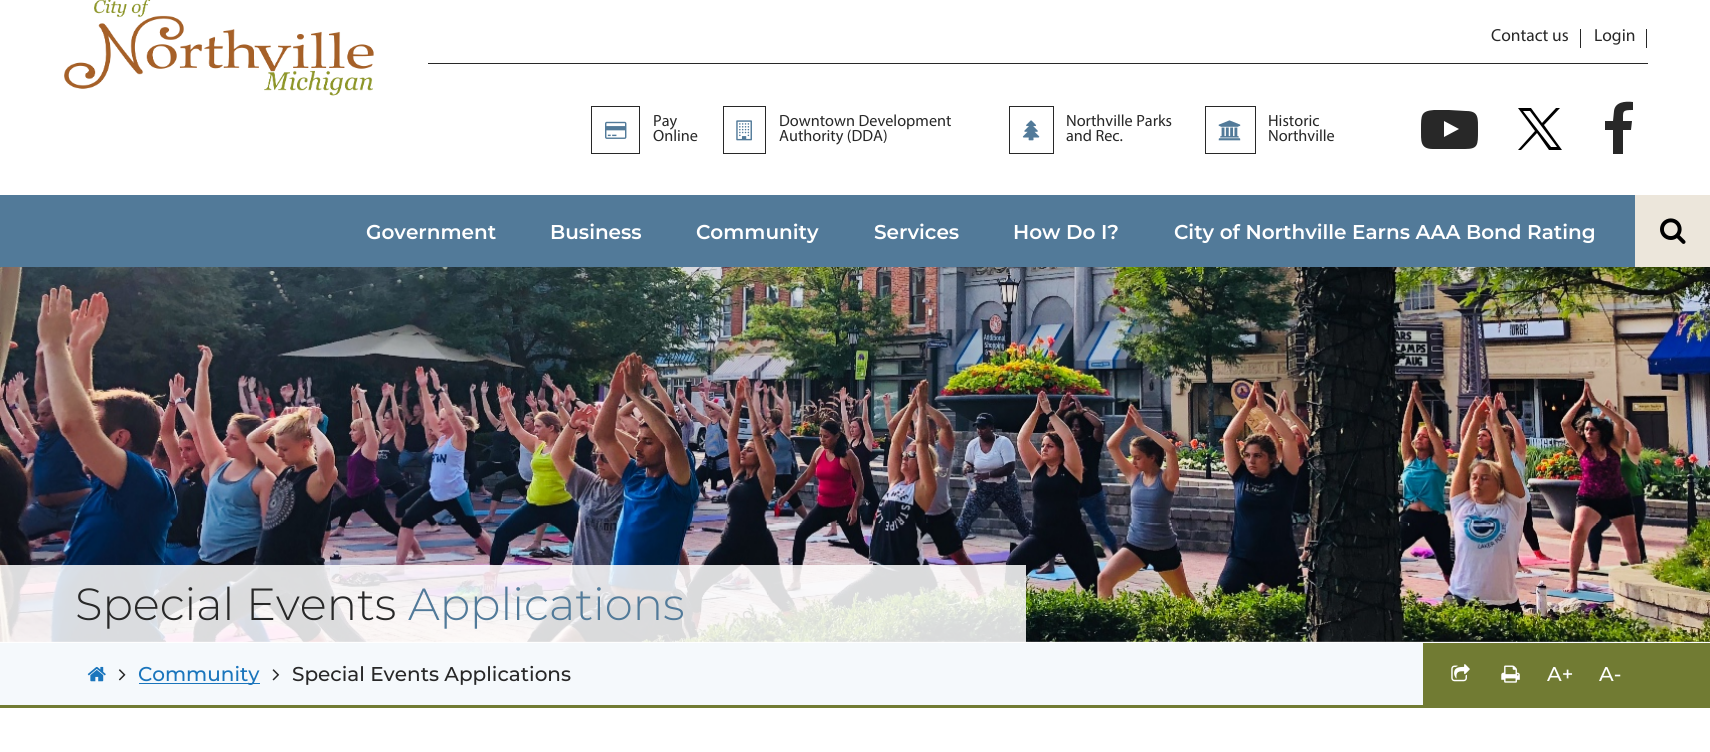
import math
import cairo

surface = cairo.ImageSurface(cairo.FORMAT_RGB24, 1710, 752)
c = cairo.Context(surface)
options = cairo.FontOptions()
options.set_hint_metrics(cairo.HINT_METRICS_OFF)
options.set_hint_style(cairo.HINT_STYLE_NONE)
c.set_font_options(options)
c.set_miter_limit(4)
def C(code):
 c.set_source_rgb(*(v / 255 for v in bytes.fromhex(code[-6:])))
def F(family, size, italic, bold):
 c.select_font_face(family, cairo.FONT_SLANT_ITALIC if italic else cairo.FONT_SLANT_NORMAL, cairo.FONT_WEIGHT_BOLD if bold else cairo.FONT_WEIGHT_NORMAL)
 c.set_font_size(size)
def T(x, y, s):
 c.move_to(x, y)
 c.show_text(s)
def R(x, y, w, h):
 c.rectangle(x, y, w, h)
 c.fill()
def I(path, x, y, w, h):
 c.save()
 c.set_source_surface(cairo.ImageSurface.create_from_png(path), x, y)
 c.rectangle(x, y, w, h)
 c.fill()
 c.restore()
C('ffffff')
c.paint()
I('1.png',64,0,310,96)
C('282828')
R(428,63,1220,1)
F('Myriad',17.5,0,0)
T(1491,41,'Contact us')
R(1580,29,1,19)
T(1594,41,'Login')
R(1646,29,1,19)
c.rectangle(591.5,106.5,48,47)
c.set_line_width(1)
c.stroke()
I('2.png',605,121,22,18)
F('Myriad',16.25,0,0)
T(653,126,'Pay')
T(653,141,'Online')
c.rectangle(723.5,106.5,42,47)
c.stroke()
I('3.png',736,120,16,21)
T(779,126,'Downtown Development')
T(779,141,'Authority (DDA)')
c.rectangle(1009.5,106.5,44,47)
c.stroke()
I('4.png',1022,120,18,21)
T(1066,126,'Northville Parks')
T(1066,141,'and Rec.')
c.rectangle(1205.5,106.5,50,47)
c.stroke()
I('5.png',1218,120,23,21)
T(1268,126,'Historic')
T(1268,141,'Northville')
c.new_path()
c.move_to(1444,137)
c.line_to(1459,129)
c.line_to(1444,121)
c.close_path()
c.move_to(1449,110)
c.line_to(1466,111)
c.curve_to(1479,111,1478,118,1478,131)
c.curve_to(1478,145,1478,149,1465,149)
c.line_to(1433,149)
c.curve_to(1420,149,1421,141,1421,129)
c.curve_to(1421,115,1421,111,1434,110)
c.close_path()
c.fill()
C('000000')
c.new_path()
c.move_to(1518,108)
c.line_to(1535,131)
c.line_to(1518,150)
c.line_to(1521,150)
c.line_to(1537,133)
c.line_to(1549,150)
c.line_to(1562,150)
c.line_to(1544,125)
c.line_to(1560,108)
c.line_to(1556,108)
c.line_to(1542,123)
c.line_to(1531,108)
c.close_path()
c.move_to(1523,111)
c.line_to(1530,111)
c.line_to(1557,147)
c.line_to(1551,147)
c.close_path()
c.fill()
C('282828')
c.new_path()
c.move_to(1633,102)
c.line_to(1633,110)
c.curve_to(1622,110,1623,111,1623,121)
c.line_to(1632,121)
c.line_to(1631,130)
c.line_to(1623,130)
c.line_to(1623,154)
c.line_to(1613,154)
c.line_to(1613,130)
c.line_to(1605,130)
c.line_to(1605,121)
c.line_to(1613,121)
c.line_to(1614,111)
c.curve_to(1615,102,1625,101,1633,102)
c.close_path()
c.fill()
C('527a99')
R(0,195,1635,72)
F('Montserrat SemiBold',20,0,0)
C('ffffff')
T(366,239,'Government')
T(550,239,'Business')
T(696,239,'Community')
T(874,239,'Services')
T(1013,239,'How Do I?')
T(1174,239,'City of Northville Earns AAA Bond Rating')
C('ece6db')
R(1635,195,75,72)
I('6.png',1660,218,26,26)
I('7.png',0,267,1710,375)
c.set_source_rgba(1,1,1,0.85)
R(0,565,1026,77)
F('Montserrat Light',45,0,0)
C('282828')
T(75,620,'Special Events')
C('527a99')
T(408,620,'Applications')
C('f5f9fc')
R(0,643,1423,62)
C('717b33')
R(0,705,1710,3)
I('8.png',87,666,19,16)
I('9.png',118,669,8,12)
C('1a75bc')
R(139,683,121,1)
F('Montserrat Medium',20,0,0)
T(138,681,'Community')
I('10.png',272,669,8,12)
C('282828')
T(292,681,'Special Events Applications')
C('717b33')
R(1423,643,287,62)
I('11.png',1451,664,19,18)
I('12.png',1501,665,19,18)
C('ffffff')
T(1547,681,'A+')
T(1599,681,'A-')
surface.write_to_png('o.png')
